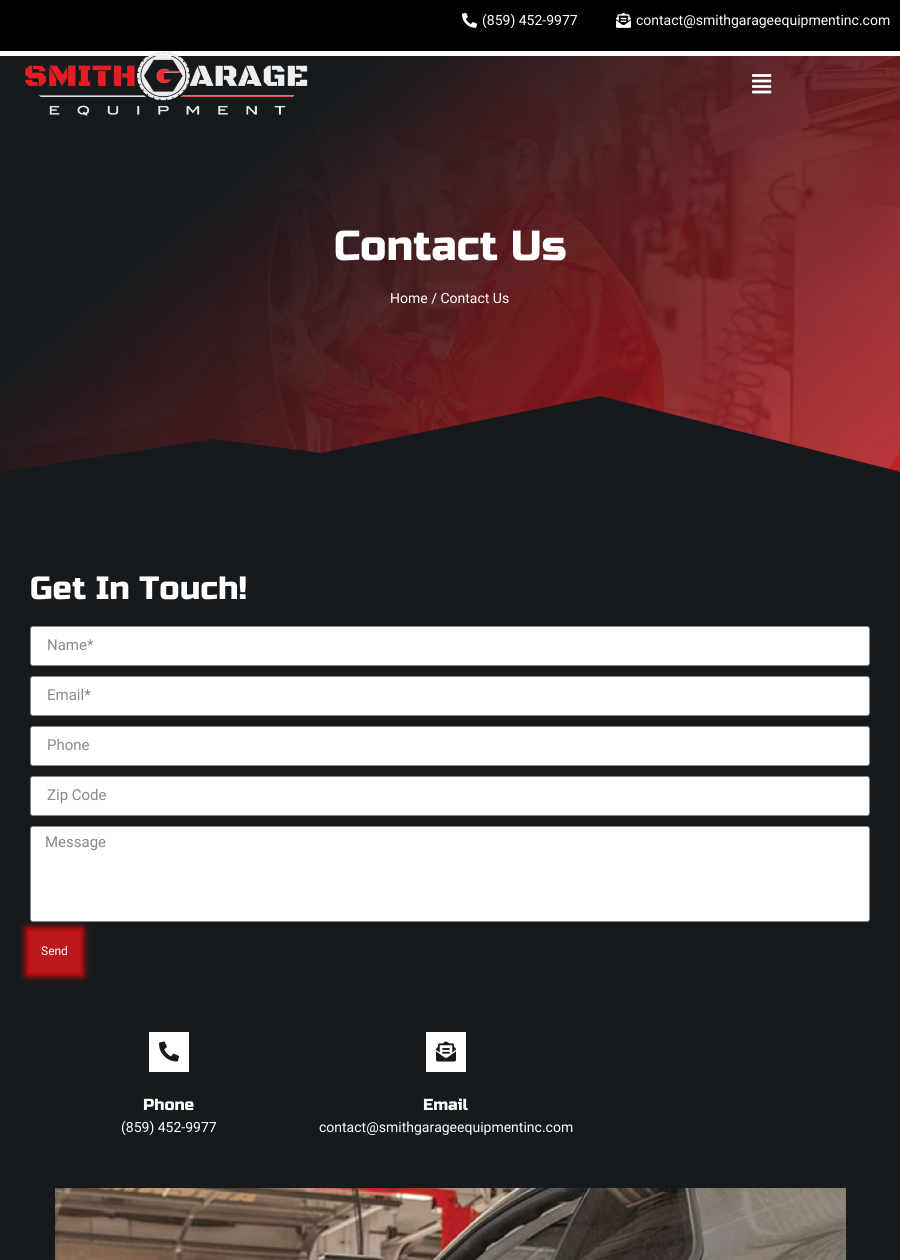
import math
import cairo

surface = cairo.ImageSurface(cairo.FORMAT_RGB24, 900, 1260)
c = cairo.Context(surface)
options = cairo.FontOptions()
options.set_hint_metrics(cairo.HINT_METRICS_OFF)
options.set_hint_style(cairo.HINT_STYLE_NONE)
c.set_font_options(options)
c.set_miter_limit(4)
def C(code):
 c.set_source_rgb(*(v / 255 for v in bytes.fromhex(code[-6:])))
def F(family, size, italic, bold):
 c.select_font_face(family, cairo.FONT_SLANT_ITALIC if italic else cairo.FONT_SLANT_NORMAL, cairo.FONT_WEIGHT_BOLD if bold else cairo.FONT_WEIGHT_NORMAL)
 c.set_font_size(size)
def T(x, y, s):
 c.move_to(x, y)
 c.show_text(s)
def R(x, y, w, h):
 c.rectangle(x, y, w, h)
 c.fill()
def Q(x, y, w, h, r):
 c.new_sub_path()
 for i, (u, v) in enumerate([(x + w - r, y + h - r), (x + r, y + h - r), (x + r, y + r), (x + w - r, y + r)]):
  c.arc(u, v, r, i * math.pi / 2, (i + 1) * math.pi / 2)
 c.close_path()
def S(x, y, w, h, r, blur, alpha):
 c.push_group_with_content(cairo.CONTENT_ALPHA)
 c.set_operator(cairo.OPERATOR_SOURCE)
 for i in range(15, -16, -2):
  e = blur * i / 6
  if min(w, h) + 2 * e > 0:
   c.set_source_rgba(0, 0, 0, alpha * math.erfc((i - 1) / 8.5) / 2)
   Q(x - e, y - e, w + 2 * e, h + 2 * e, max(0, min(r + e + blur * .6, min(w, h) / 2 + e)))
   c.fill()
 c.mask(c.pop_group())
def I(path, x, y, w, h):
 c.save()
 c.set_source_surface(cairo.ImageSurface.create_from_png(path), x, y)
 c.rectangle(x, y, w, h)
 c.fill()
 c.restore()
C('ffffff')
c.paint()
C('000000')
R(0,0,900,51)
I('1.png',462,12,15,16)
F('Roboto',14,0,0)
C('ffffff')
T(482,25,'(859) 452-9977')
I('2.png',616,12,15,16)
T(636,25,'contact@smithgarageequipmentinc.com')
I('5.png',0,56,900,416)
I('3.png',25,51,283,65)
I('4.png',752,74,20,20)
F('Russo One',42,0,0)
T(334,260,'Contact Us')
F('Roboto',14,0,0)
T(390,303,'Home / Contact Us')
C('161a1d')
c.new_path()
c.move_to(214,439)
c.line_to(321,453)
c.line_to(600,396)
c.line_to(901,472)
c.line_to(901,475)
c.line_to(-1,475)
c.line_to(-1,472)
c.fill()
R(0,475,900,785)
F('Russo One',32.25,0,0)
C('ffffff')
T(30,599,'Get In Touch!')
Q(30.5,626.5,839,39,2.5)
c.fill_preserve()
C('818a91')
c.set_line_width(1)
c.stroke()
F('Roboto',15,0,0)
C('87898a')
T(47,650,'Name*')
C('ffffff')
Q(30.5,676.5,839,39,2.5)
c.fill_preserve()
C('818a91')
c.stroke()
C('87898a')
T(47,700,'Email*')
C('ffffff')
Q(30.5,726.5,839,39,2.5)
c.fill_preserve()
C('818a91')
c.stroke()
C('87898a')
T(47,750,'Phone')
C('ffffff')
Q(30.5,776.5,839,39,2.5)
c.fill_preserve()
C('818a91')
c.stroke()
C('87898a')
T(47,800,'Zip Code')
C('ffffff')
Q(30.5,826.5,839,95,2.5)
c.fill_preserve()
C('818a91')
c.stroke()
C('87898a')
T(45,847,'Message')
C('ff070e')
S(26,928,57,48,0,3.5,.95)
C('ba181b')
R(30,932,49,40)
F('Roboto',12,0,0)
C('ffffff')
T(41,955,'Send')
R(149,1032,40,40)
I('6.png',159,1041,20,21)
F('Russo One',16,0,0)
T(143,1110,'Phone')
F('Roboto',14,0,0)
T(121,1132,'(859) 452-9977')
R(426,1032,40,40)
I('7.png',436,1041,20,21)
F('Russo One',16,0,0)
T(423,1110,'Email')
F('Roboto',14,0,0)
T(319,1132,'contact@smithgarageequipmentinc.com')
I('8.png',55,1188,791,72)
surface.write_to_png('o.png')
